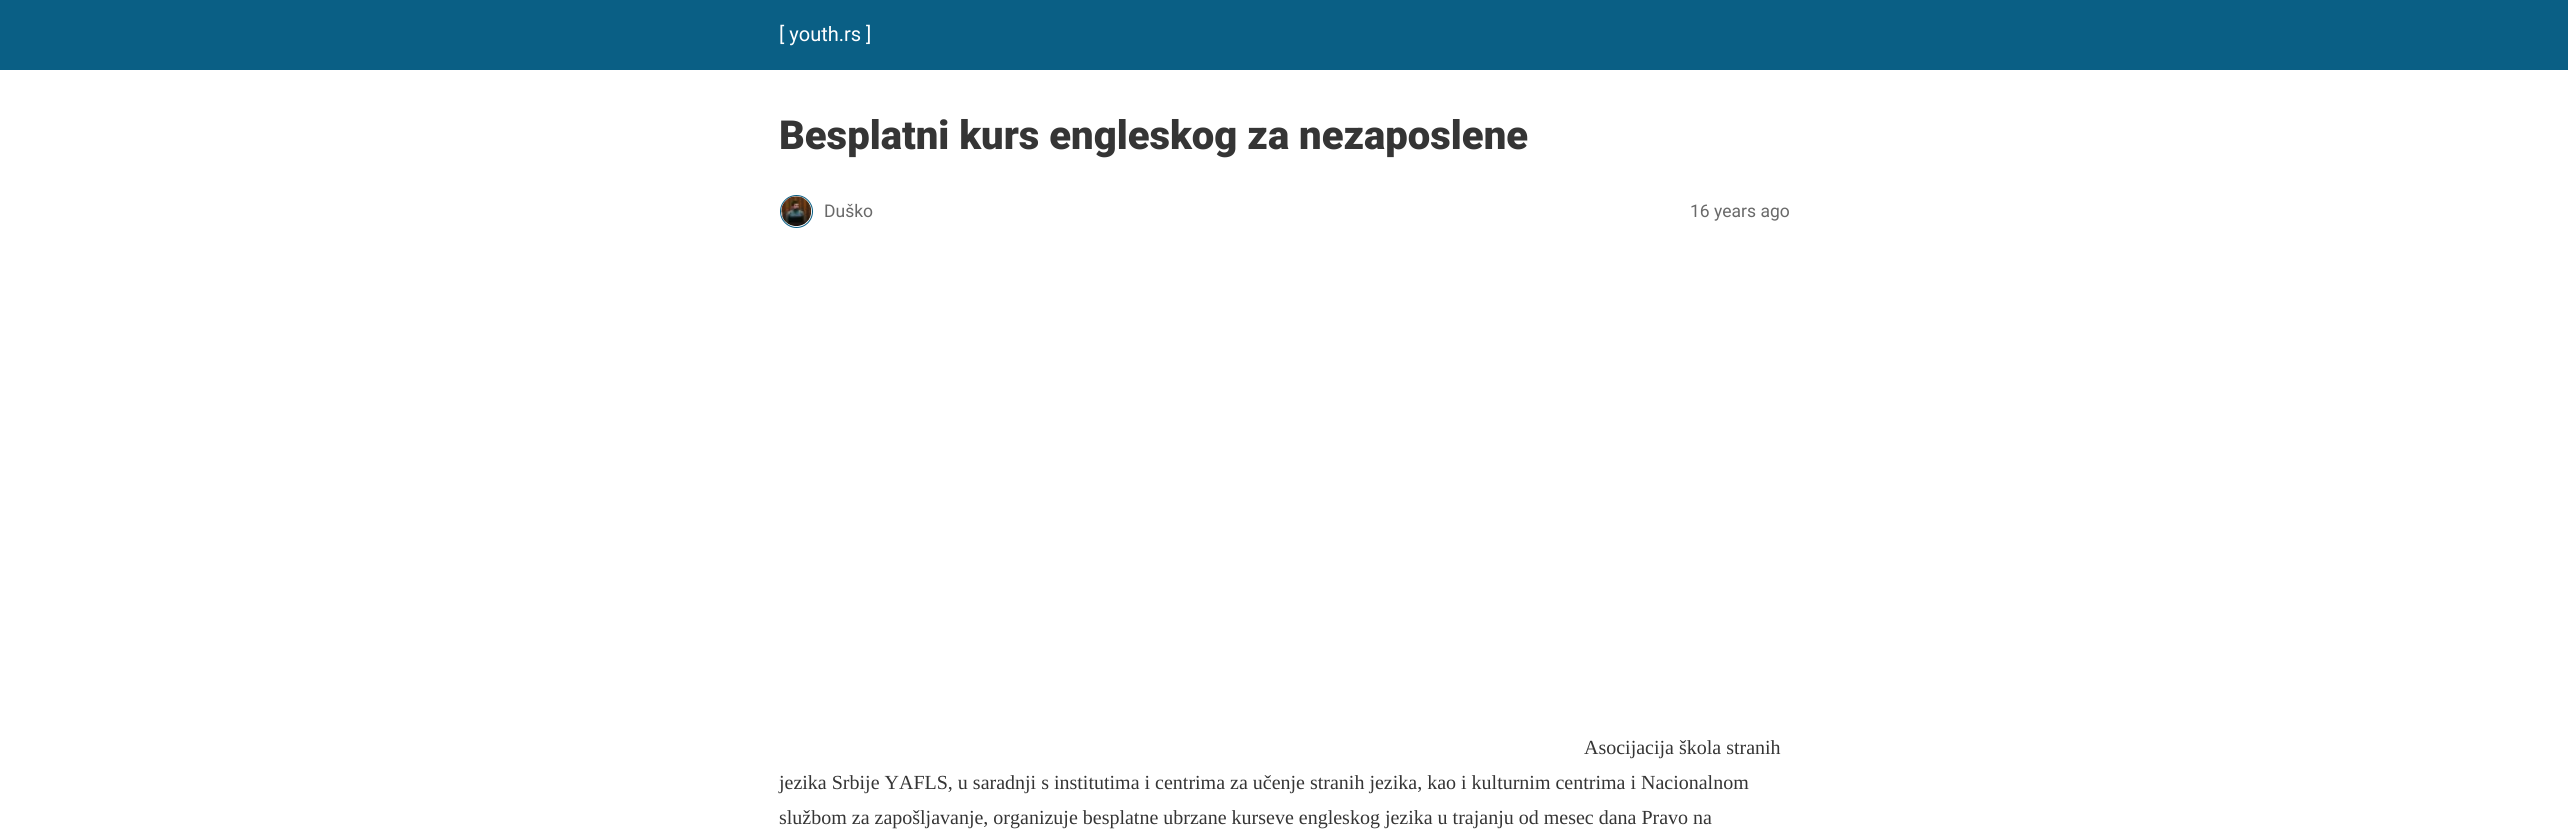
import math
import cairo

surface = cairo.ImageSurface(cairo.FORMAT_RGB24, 2568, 834)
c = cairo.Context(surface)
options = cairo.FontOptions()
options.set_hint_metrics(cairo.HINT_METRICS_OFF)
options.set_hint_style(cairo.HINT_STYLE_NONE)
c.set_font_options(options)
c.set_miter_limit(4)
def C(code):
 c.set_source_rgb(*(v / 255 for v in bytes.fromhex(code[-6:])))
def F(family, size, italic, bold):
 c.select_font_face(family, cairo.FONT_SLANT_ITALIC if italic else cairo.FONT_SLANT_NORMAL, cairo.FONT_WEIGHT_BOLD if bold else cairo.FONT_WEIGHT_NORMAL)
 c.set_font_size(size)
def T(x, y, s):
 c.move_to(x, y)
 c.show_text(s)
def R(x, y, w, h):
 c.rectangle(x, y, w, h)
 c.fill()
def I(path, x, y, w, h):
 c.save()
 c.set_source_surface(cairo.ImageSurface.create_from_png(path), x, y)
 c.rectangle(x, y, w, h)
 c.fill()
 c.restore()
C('ffffff')
c.paint()
C('0a5f85')
R(0,0,2568,70)
F('Roboto',20,0,0)
C('ffffff')
T(779,41,'[ youth.rs ]')
F('Roboto Black',40,0,0)
C('353535')
T(779,149,'Besplatni kurs engleskog za nezaposlene')
c.new_path()
c.arc(796.5,211.5,16,0,2 * math.pi)
C('0a5f85')
c.set_line_width(1)
c.stroke()
I('1.png',781,196,31,31)
F('Roboto',17.5,0,0)
C('696969')
T(824,217,'Duško')
T(1690,217,'16 years ago')
F('Liberation Serif',20,0,0)
C('353535')
T(1584,754,'Asocijacija škola stranih')
T(779,789,'jezika Srbije YAFLS, u saradnji s institutima i centrima za učenje stranih jezika, kao i kulturnim centrima i Nacionalnom')
T(779,824,'službom za zapošljavanje, organizuje besplatne ubrzane kurseve engleskog jezika u trajanju od mesec dana Pravo na')
surface.write_to_png('o.png')
